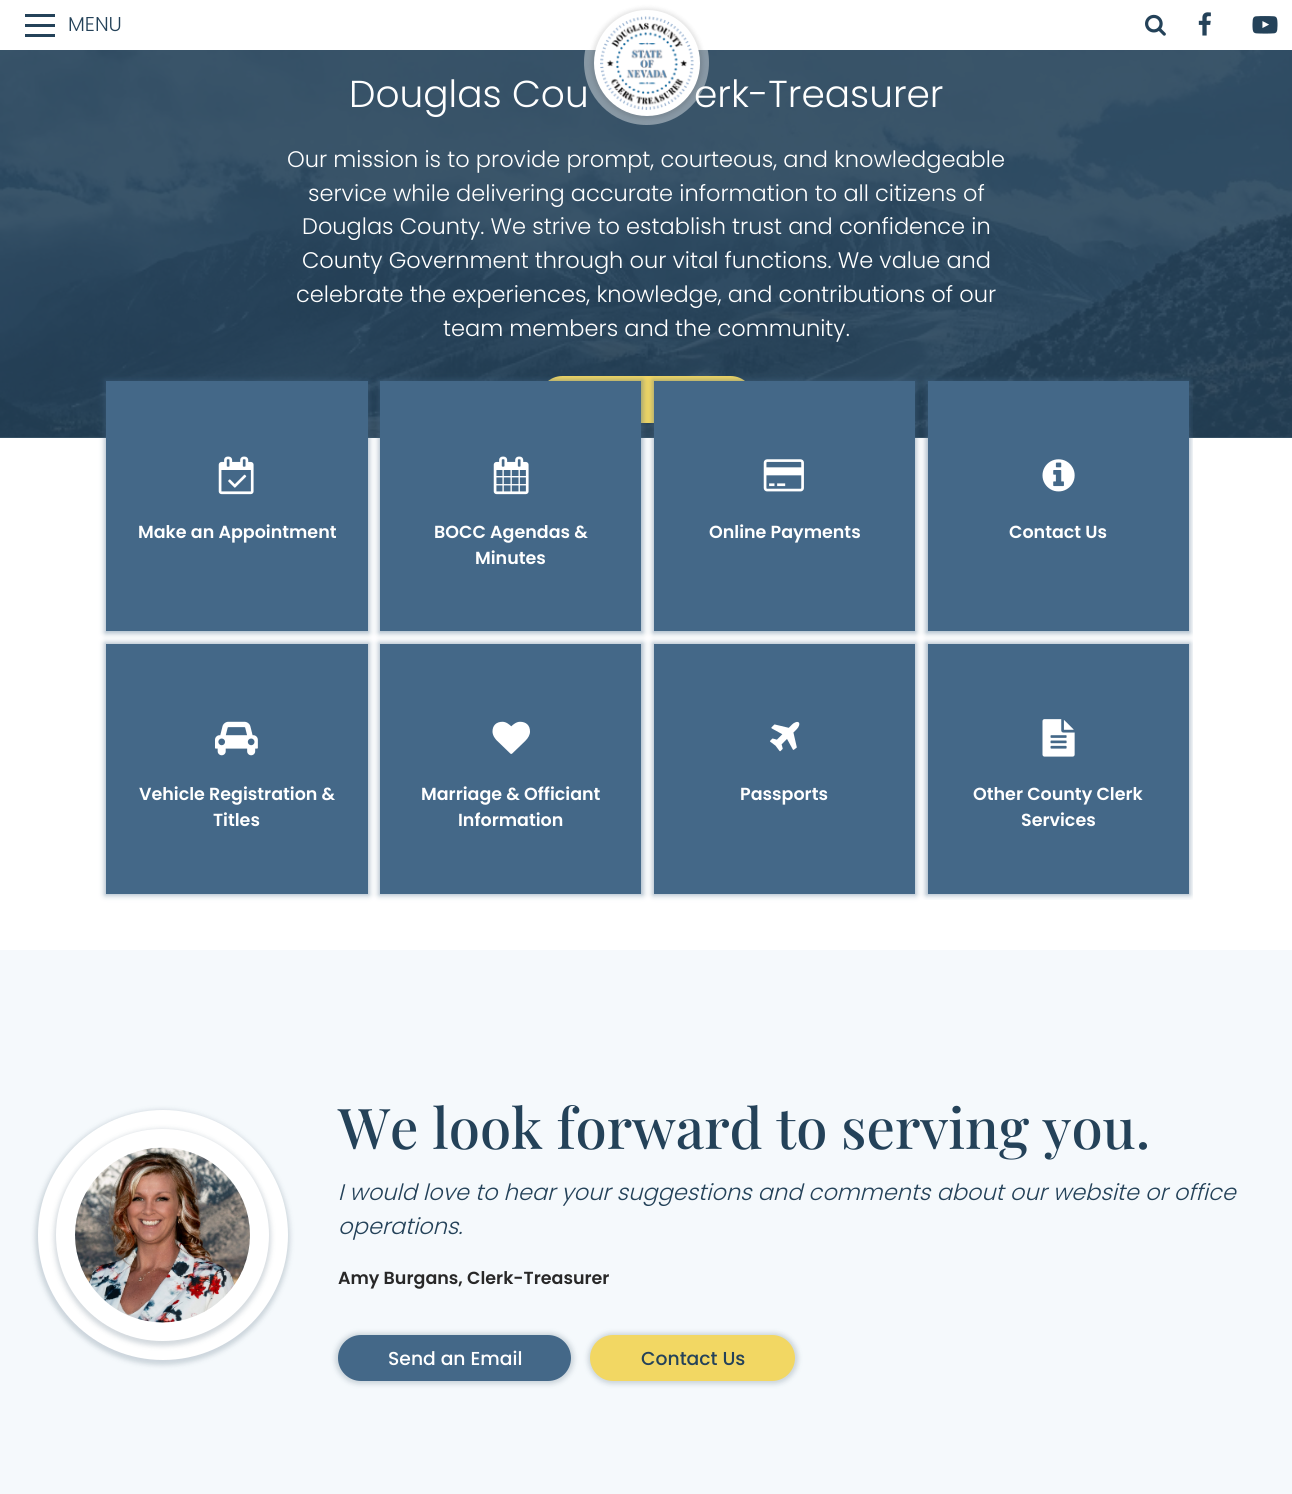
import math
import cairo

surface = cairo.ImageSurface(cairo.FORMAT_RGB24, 1292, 1494)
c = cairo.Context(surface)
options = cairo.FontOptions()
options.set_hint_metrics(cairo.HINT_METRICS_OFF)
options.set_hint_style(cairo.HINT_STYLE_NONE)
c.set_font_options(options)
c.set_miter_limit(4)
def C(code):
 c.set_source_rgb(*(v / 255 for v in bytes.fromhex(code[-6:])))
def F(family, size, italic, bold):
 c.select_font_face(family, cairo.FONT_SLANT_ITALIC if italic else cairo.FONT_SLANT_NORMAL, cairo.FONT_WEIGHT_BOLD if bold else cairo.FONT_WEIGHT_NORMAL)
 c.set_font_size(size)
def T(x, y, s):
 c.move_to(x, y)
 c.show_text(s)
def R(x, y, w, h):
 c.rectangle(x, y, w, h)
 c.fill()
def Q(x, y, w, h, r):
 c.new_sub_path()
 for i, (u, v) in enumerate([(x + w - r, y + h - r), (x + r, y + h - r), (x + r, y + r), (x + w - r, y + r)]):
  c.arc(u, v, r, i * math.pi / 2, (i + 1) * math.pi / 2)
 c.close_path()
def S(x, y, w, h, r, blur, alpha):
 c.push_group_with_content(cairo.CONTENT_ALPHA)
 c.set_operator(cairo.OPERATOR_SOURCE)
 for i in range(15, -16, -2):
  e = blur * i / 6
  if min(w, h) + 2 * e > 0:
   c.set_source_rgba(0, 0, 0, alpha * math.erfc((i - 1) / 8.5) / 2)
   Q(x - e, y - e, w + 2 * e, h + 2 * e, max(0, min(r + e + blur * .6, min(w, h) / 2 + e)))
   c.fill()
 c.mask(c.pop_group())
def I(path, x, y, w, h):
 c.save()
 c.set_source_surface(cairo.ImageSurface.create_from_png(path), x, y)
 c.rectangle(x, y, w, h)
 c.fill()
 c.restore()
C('ffffff')
c.paint()
C('3a556a')
R(0,437,1292,1)
C('244259')
R(25,24,30,3)
R(25,14,30,3)
R(25,34,30,3)
F('Poppins Light',20,0,0)
T(68,31,'MENU')
I('5.png',0,50,1292,388)
F('Poppins Light',37.5,0,0)
C('ffffff')
T(349,107,'Douglas Cou')
T(694,107,'erk-Treasurer')
c.set_source_rgba(1,1,1,0.4)
c.new_path()
c.arc(646.5,62.5,62.5,0,2 * math.pi)
c.fill()
C('000000')
S(591,8,112,111,55.5,2,.1)
C('ffffff')
c.arc(647,63,53,0,2 * math.pi)
c.fill()
I('1.png',600,16,94,94)
I('2.png',1145,14,21,22)
I('3.png',1198,12,13,24)
I('4.png',1252,16,26,18)
F('Poppins Light',22.5,0,0)
T(287,167,'Our mission is to provide prompt, courteous, and knowledgeable')
T(308,201,'service while delivering accurate information to all citizens of')
T(302,234,'Douglas County. We strive to establish trust and confidence in')
T(302,268,'County Government through our vital functions. We value and')
T(296,302,'celebrate the experiences, knowledge, and contributions of our')
T(443,336,'team members and the community.')
C('f2d763')
Q(539,376,215,47,23.5)
c.fill()
C('446888')
S(105,380,264,253,0,3,.5)
C('446888')
R(106,381,262,250)
I('6.png',218,456,36,39)
F('Poppins SemiBold',17.5,0,0)
C('ffffff')
T(138,538,'Make an Appointment')
C('446888')
S(105,643,264,252,0,3,.5)
C('446888')
R(106,644,262,250)
I('7.png',215,721,43,35)
C('ffffff')
T(139,800,'Vehicle Registration &')
T(213,826,'Titles')
C('446888')
S(379,380,264,253,0,3,.5)
C('446888')
R(380,381,261,250)
I('8.png',493,456,36,39)
C('ffffff')
T(434,538,'BOCC Agendas &')
T(475,564,'Minutes')
C('446888')
S(379,643,264,252,0,3,.5)
C('446888')
R(380,644,261,250)
I('9.png',492,721,38,33)
C('ffffff')
T(421,800,'Marriage & Officiant')
T(458,826,'Information')
C('446888')
S(653,380,263,253,0,3,.5)
C('446888')
R(654,381,261,250)
I('10.png',763,459,41,33)
C('ffffff')
T(709,538,'Online Payments')
C('446888')
S(653,643,263,252,0,3,.5)
C('446888')
R(654,644,261,250)
I('11.png',770,721,30,31)
C('ffffff')
T(740,800,'Passports')
c.save()
c.rectangle(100,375,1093,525)
c.clip()
C('446888')
S(926,380,264,253,0,3,.5)
c.restore()
C('446888')
R(928,381,261,250)
I('12.png',1042,459,33,33)
C('ffffff')
T(1009,538,'Contact Us')
c.save()
c.rectangle(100,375,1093,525)
c.clip()
C('446888')
S(926,643,264,252,0,3,.5)
c.restore()
C('446888')
R(928,644,261,250)
I('13.png',1042,719,33,38)
C('ffffff')
T(973,800,'Other County Clerk')
T(1021,826,'Services')
C('f5f9fc')
R(0,950,1292,544)
C('244259')
S(35,1110,255,255,127.5,2.5,.2)
C('ffffff')
c.arc(163,1235,125,0,2 * math.pi)
c.fill()
C('244259')
S(54,1129,217,217,108.5,2.5,.2)
C('ffffff')
Q(56,1129,213,212,106)
c.fill()
I('14.png',75,1147,175,176)
F('Playfair Display Medium',56.25,0,0)
C('244259')
T(338,1149,'We look forward to serving you.')
F('Poppins Light',22.5,1,0)
T(338,1200,'I would love to hear your suggestions and comments about our website or office')
T(338,1234,'operations.')
F('Poppins SemiBold',17.5,0,0)
C('282828')
T(338,1284,'Amy Burgans, Clerk-Treasurer')
C('244259')
S(335,1333,239,51,25.5,2.5,.2)
C('446888')
Q(338,1335,233,46,23)
c.fill()
F('Poppins Medium',18.75,0,0)
C('ffffff')
T(388,1365,'Send an Email')
C('244259')
S(588,1333,210,51,25.5,2.5,.2)
C('f2d763')
Q(590,1335,205,46,23)
c.fill()
C('244259')
T(641,1365,'Contact Us')
surface.write_to_png('o.png')
